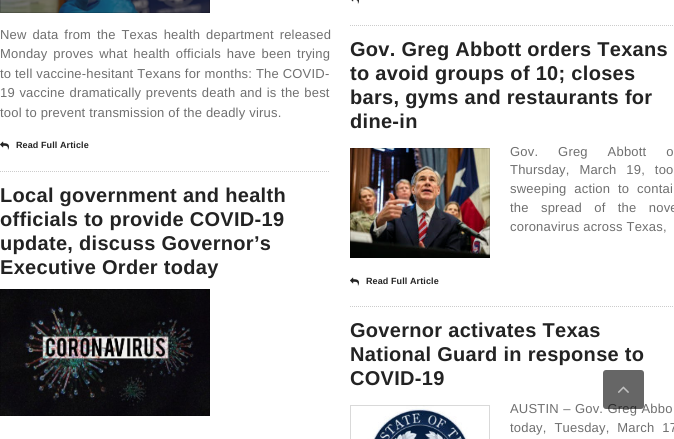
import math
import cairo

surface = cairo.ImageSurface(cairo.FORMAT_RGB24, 674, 439)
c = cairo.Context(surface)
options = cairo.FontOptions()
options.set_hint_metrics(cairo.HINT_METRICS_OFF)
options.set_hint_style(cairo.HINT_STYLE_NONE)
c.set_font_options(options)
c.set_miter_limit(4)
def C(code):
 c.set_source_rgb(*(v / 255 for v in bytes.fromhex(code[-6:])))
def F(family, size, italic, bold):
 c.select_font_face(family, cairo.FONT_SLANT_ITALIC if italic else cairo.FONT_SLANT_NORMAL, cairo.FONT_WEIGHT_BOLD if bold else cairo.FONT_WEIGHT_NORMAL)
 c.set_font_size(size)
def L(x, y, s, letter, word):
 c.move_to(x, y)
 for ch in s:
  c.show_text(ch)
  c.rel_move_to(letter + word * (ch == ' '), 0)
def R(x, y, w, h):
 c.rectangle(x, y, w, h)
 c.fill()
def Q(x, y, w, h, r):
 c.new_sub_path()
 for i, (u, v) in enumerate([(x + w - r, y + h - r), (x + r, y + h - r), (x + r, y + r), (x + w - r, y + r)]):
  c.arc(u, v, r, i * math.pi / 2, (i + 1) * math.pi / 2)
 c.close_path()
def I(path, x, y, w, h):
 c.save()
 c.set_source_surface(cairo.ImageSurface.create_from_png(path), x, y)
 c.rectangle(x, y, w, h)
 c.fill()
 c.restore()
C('ffffff')
c.paint()
c.new_path()
c.move_to(0,171.5)
c.line_to(330,171.5)
C('cccccc')
c.set_line_width(1)
c.set_dash([1,1])
c.stroke()
C('232323')
R(0,0,210,13)
I('1.png',0,0,210,13)
c.rectangle(.5,-.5,209,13)
c.set_source_rgba(0,0,0,0.15)
c.set_dash([])
c.stroke()
F('Liberation Sans',13,0,0)
C('6f6f6f')
L(0,39,'New data from the Texas health department released',.2,2)
L(0,58,'Monday proves what health officials have been trying',.2,2)
L(0,78,'to tell vaccine-hesitant Texans for months: The COVID-',.2,0)
L(0,97,'19 vaccine dramatically prevents death and is the best',.2,.75)
L(0,117,'tool to prevent transmission of the deadly virus.',.2,0)
I('2.png',0,141,9,9)
F('Liberation Sans',9,0,1)
C('232323')
L(16,148,'Read Full Article',.1,0)
F('Liberation Sans',20,0,1)
L(0,202,'Local government and health',.3,0)
L(0,226,'officials to provide COVID-19',.3,0)
L(0,250,'update, discuss Governor’s',.3,0)
L(0,274,'Executive Order today',.3,0)
I('3.png',0,289,210,127)
c.rectangle(.5,289.5,209,126)
c.set_source_rgba(0,0,0,0.15)
c.stroke()
c.new_path()
c.move_to(350,25.5)
c.line_to(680,25.5)
C('cccccc')
c.set_dash([1,1])
c.stroke()
I('4.png',351,0,8,4)
c.new_path()
c.move_to(350,306.5)
c.line_to(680,306.5)
c.stroke()
C('232323')
L(350,56,'Gov. Greg Abbott orders Texans',.3,0)
L(350,80,'to avoid groups of 10; closes',.3,0)
L(350,104,'bars, gyms and restaurants for',.3,0)
L(350,128,'dine-in',.3,0)
I('5.png',350,148,140,110)
c.rectangle(350.5,148.5,139,109)
c.set_source_rgba(0,0,0,0.15)
c.set_dash([])
c.stroke()
F('Liberation Sans',13,0,0)
C('6f6f6f')
L(510,156,'Gov. Greg Abbott o',.2,16)
L(510,174,'Thursday, March 19, too',.2,6)
L(510,193,'sweeping action to contai',.2,4)
L(510,212,'the spread of the nove',.2,8.5)
L(510,231,'coronavirus across Texas,',.2,0)
I('2.png',350,277,9,9)
F('Liberation Sans',9,0,1)
C('232323')
L(366,284,'Read Full Article',.1,0)
F('Liberation Sans',20,0,1)
L(350,337,'Governor activates Texas',.3,0)
L(350,361,'National Guard in response to',.3,0)
L(350,385,'COVID-19',.3,0)
I('6.png',350,405,140,34)
c.rectangle(350.5,405.5,139,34)
c.set_source_rgba(0,0,0,0.15)
c.stroke()
F('Liberation Sans',13,0,0)
C('6f6f6f')
L(510,413,'AUSTIN – Gov. Greg Abbo',.2,.5)
L(510,432,'today, Tuesday, March 17',.2,4)
c.set_source_rgba(0,0,0,0.6)
Q(603,370,41,39,3)
c.fill()
I('7.png',618,386,11,7)
surface.write_to_png('o.png')
